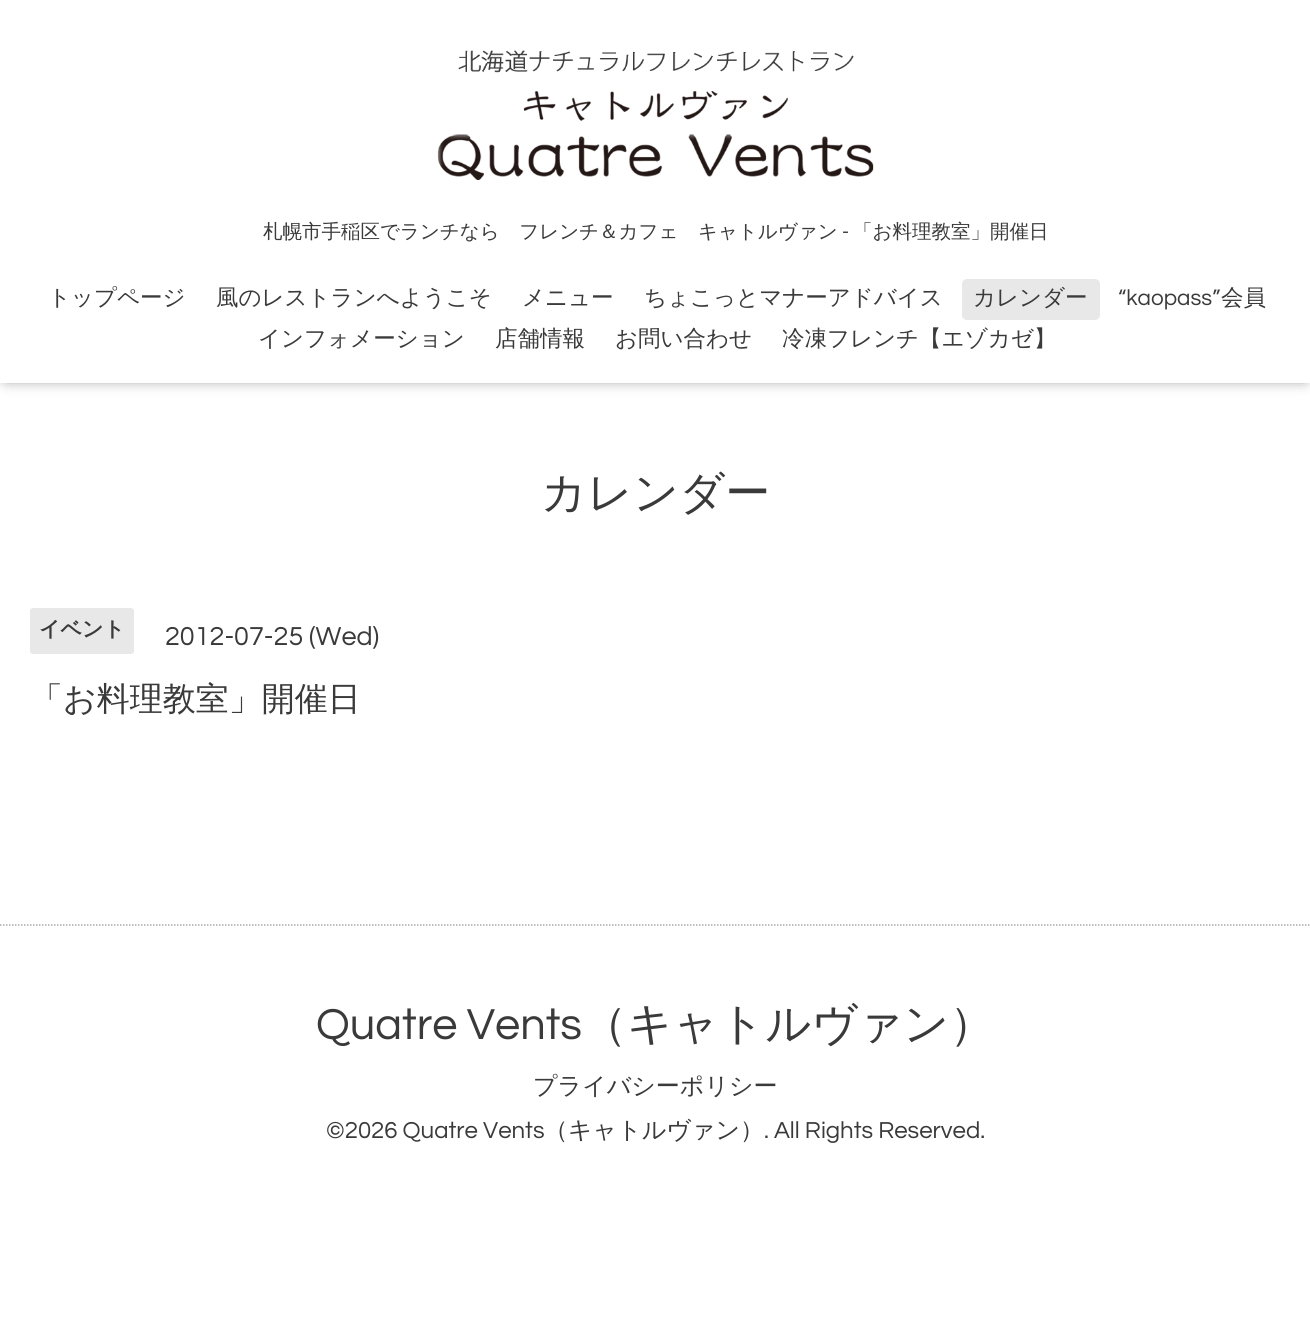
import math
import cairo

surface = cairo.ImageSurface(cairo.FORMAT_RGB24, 1310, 1340)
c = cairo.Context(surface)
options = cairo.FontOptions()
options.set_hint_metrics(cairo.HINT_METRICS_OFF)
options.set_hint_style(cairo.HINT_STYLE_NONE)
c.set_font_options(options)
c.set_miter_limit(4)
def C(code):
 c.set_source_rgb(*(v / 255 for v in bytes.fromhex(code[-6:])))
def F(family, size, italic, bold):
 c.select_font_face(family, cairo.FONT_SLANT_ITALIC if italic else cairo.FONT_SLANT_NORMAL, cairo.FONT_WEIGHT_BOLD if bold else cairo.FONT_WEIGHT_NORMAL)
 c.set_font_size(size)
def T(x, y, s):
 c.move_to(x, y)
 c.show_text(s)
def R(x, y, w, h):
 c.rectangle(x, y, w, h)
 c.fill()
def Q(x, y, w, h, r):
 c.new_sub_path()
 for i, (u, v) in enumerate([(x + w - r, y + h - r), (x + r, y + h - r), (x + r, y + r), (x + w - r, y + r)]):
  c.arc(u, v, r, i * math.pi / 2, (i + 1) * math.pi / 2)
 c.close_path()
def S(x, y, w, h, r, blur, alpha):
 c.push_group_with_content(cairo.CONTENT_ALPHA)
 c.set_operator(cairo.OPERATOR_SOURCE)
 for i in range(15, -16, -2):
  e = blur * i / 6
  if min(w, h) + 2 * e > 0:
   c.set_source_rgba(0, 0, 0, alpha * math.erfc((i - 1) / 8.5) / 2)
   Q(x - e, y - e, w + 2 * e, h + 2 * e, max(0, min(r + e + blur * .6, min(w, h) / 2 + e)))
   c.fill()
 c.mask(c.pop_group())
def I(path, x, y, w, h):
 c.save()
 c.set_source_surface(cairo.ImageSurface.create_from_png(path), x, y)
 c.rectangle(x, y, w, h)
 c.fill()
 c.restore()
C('ffffff')
c.paint()
C('000000')
S(6,8,1299,370,0,7.5,.6)
C('ffffff')
R(0,0,1310,383)
I('1.png',437,50,437,130)
F('WenQuanYi Zen Hei Medium',19.5,0,0)
C('3a3a3a')
T(263,238,'札幌市手稲区でランチなら　フレンチ＆カフェ　キャトルヴァン')
F('Questrial',19.5,0,0)
T(842,238,'-')
F('WenQuanYi Zen Hei Medium',19.5,0,0)
T(853,238,'「お料理教室」開催日')
F('WenQuanYi Zen Hei Medium',22.5,0,0)
T(48,305,'トップページ')
T(216,305,'風のレストランへようこそ')
T(522,305,'メニュー')
T(644,305,'ちょこっとマナーアドバイス')
C('e8e8e8')
Q(962,279,138,41,5)
c.fill()
C('3a3a3a')
T(973,305,'カレンダー')
F('Questrial',22.5,0,0)
T(1118,305,'“kaopass”')
F('WenQuanYi Zen Hei Medium',22.5,0,0)
T(1221,305,'会員')
T(258,346,'インフォメーション')
T(495,346,'店舗情報')
T(615,346,'お問い合わせ')
T(782,346,'冷凍フレンチ【エゾカゼ】')
F('WenQuanYi Zen Hei Medium',45,0,0)
T(541,508,'カレンダー')
C('e8e8e8')
Q(30,608,104,46,3)
c.fill()
F('WenQuanYi Zen Hei',21,0,1)
C('3a3a3a')
T(39,636,'イベント')
F('Questrial',27,0,0)
T(165,645,'2012-07-25 (Wed)')
F('WenQuanYi Zen Hei Medium',33,0,0)
T(30,710,'「お料理教室」開催日')
c.new_path()
c.move_to(0,925)
c.line_to(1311,925)
C('a9a9a9')
c.set_line_width(1.5)
c.set_dash([1.5,1.5])
c.stroke()
F('Questrial',45,0,0)
C('3a3a3a')
T(316,1039,'Quatre Vents')
F('WenQuanYi Zen Hei Medium',45,0,0)
T(582,1039,'（キャトルヴァン）')
F('WenQuanYi Zen Hei Medium',24,0,0)
T(533,1094,'プライバシーポリシー')
F('Questrial',24,0,0)
T(326,1138,'©2026 Quatre Vents')
F('WenQuanYi Zen Hei Medium',24,0,0)
T(544,1138,'（キャトルヴァン）')
F('Questrial',24,0,0)
T(764,1138,'. All Rights Reserved.')
surface.write_to_png('o.png')
